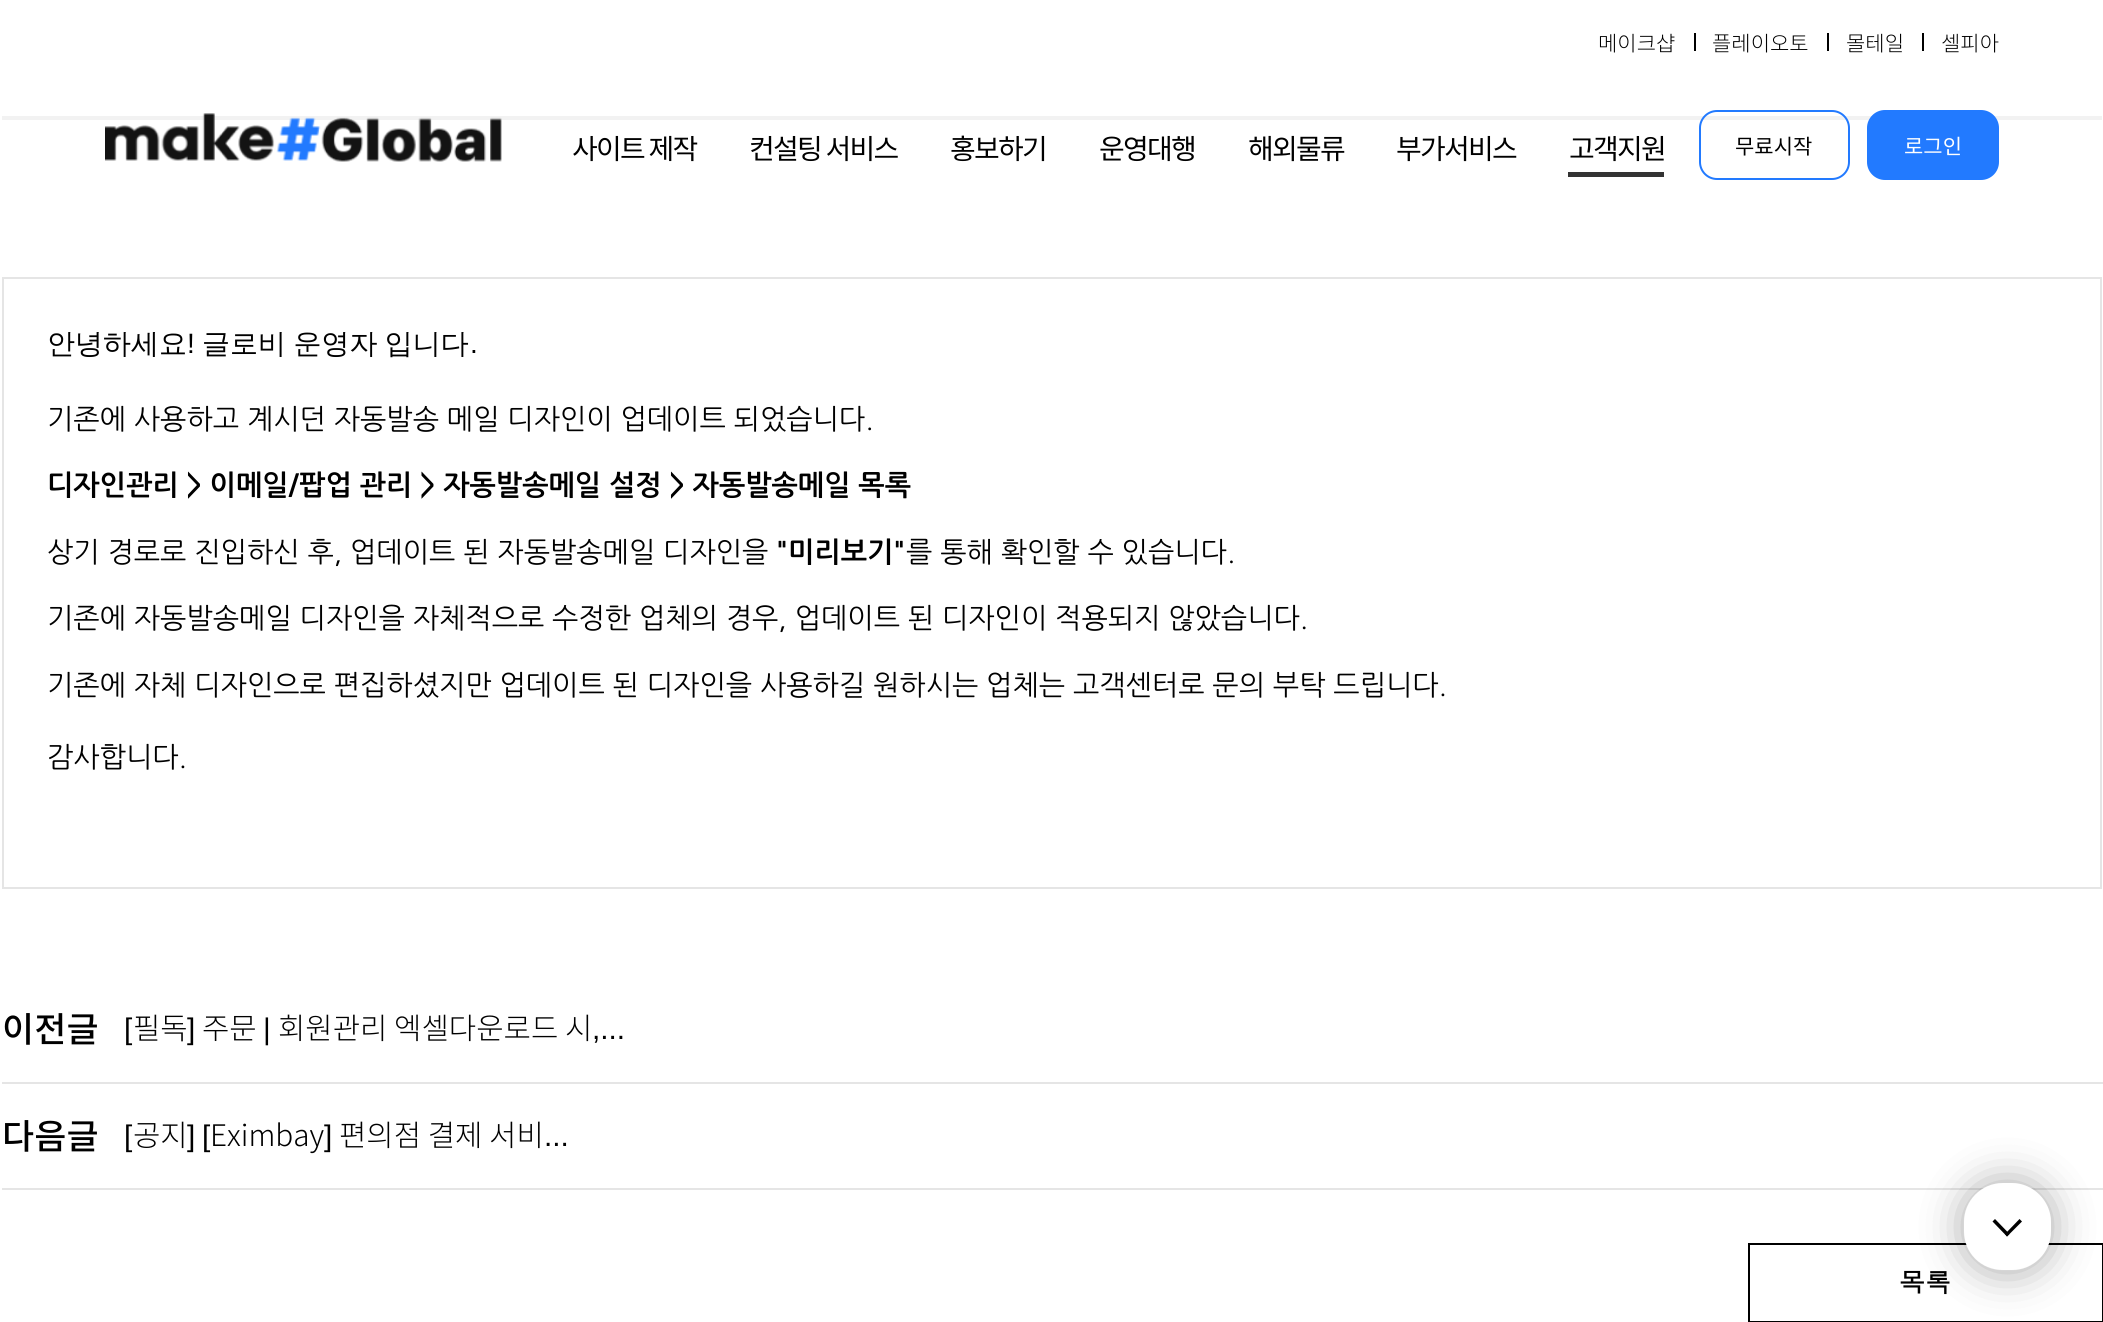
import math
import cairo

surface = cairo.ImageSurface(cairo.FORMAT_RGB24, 2103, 1322)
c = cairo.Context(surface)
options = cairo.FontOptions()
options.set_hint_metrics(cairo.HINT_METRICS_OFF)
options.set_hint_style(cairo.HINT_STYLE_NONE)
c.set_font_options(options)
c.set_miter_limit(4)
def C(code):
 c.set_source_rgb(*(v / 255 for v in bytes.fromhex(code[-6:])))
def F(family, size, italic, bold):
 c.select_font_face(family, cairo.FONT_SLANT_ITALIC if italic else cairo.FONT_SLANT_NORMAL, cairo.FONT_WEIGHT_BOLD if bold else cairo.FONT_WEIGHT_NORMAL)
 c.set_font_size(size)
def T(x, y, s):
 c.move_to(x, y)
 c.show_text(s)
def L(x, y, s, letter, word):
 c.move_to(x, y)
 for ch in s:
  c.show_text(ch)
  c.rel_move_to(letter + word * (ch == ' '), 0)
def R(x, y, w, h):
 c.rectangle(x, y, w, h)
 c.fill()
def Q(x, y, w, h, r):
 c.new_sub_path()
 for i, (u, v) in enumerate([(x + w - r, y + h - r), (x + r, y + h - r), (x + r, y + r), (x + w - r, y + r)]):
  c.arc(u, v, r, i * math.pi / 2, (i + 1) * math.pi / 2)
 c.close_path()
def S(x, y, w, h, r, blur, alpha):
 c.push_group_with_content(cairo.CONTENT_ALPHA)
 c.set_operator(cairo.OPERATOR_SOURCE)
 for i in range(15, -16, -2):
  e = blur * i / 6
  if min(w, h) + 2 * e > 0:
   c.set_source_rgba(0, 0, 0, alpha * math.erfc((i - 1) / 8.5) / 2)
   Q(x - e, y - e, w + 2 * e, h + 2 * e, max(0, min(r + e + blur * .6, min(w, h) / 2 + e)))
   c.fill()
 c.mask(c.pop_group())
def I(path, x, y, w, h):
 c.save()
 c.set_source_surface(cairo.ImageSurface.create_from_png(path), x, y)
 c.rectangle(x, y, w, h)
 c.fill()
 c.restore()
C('ffffff')
c.paint()
F('Noto Sans CJK KR Light',21,0,0)
C('000000')
T(1598,51,'메이크샵')
R(1694,33,2,18)
T(1712,51,'플레이오토')
R(1827,33,2,18)
T(1846,51,'몰테일')
R(1922,33,2,18)
T(1941,51,'셀피아')
C('f2f2f2')
R(2,116,2100,4)
I('1.png',105,113,397,49)
F('Noto Sans CJK KR',28,0,0)
C('000000')
L(572,159,'사이트 제작',-1.75,0)
L(749,159,'컨설팅 서비스',-1.75,0)
L(950,159,'홍보하기',-1.75,0)
L(1099,159,'운영대행',-1.75,0)
L(1248,159,'해외물류',-1.75,0)
L(1396,159,'부가서비스',-1.75,0)
L(1569,159,'고객지원',-1.75,0)
C('333333')
R(1568,172,96,5)
Q(1700,111,149,68,17)
C('227aff')
c.stroke()
F('Noto Sans CJK KR',21,0,0)
C('000000')
T(1735,154,'무료시작')
C('227aff')
Q(1868,111,130,68,17)
c.fill_preserve()
c.stroke()
C('ffffff')
T(1904,154,'로그인')
c.rectangle(3,278,2098,610)
C('e5e5e5')
c.stroke()
F('WenQuanYi Zen Hei Medium',28,0,0)
C('000000')
T(47,353,'안녕하세요')
F('Liberation Sans',28,0,0)
T(187,353,'!')
F('WenQuanYi Zen Hei Medium',28,0,0)
L(202,353,'글로비 운영자 입니다',0,-1)
F('Liberation Sans',28,0,0)
T(470,353,'.')
F('NanumGothic',28,0,0)
T(47,429,'기존에 사용하고 계시던 자동발송 메일 디자인이 업데이트 되었습니다.')
F('NanumGothic',28,0,1)
T(47,495,'디자인관리 > 이메일/팝업 관리 > 자동발송메일 설정 > 자동발송메일 목록')
F('NanumGothic',28,0,0)
T(47,562,'상기 경로로 진입하신 후, 업데이트 된 자동발송메일 디자인을')
F('NanumGothic',28,0,1)
T(776,562,'"미리보기"')
F('NanumGothic',28,0,0)
T(906,562,'를 통해 확인할 수 있습니다.')
T(47,628,'기존에 자동발송메일 디자인을 자체적으로 수정한 업체의 경우, 업데이트 된 디자인이 적용되지 않았습니다.')
T(47,695,'기존에 자체 디자인으로 편집하셨지만 업데이트 된 디자인을 사용하길 원하시는 업체는 고객센터로 문의 부탁 드립니다.')
T(47,767,'감사합니다.')
F('Noto Sans CJK KR Medium',35,0,0)
T(2,1042,'이전글')
C('e5e5e5')
R(2,1082,2101,2)
F('Liberation Sans',29.75,0,0)
C('000000')
T(124,1039,'[')
F('Noto Sans CJK KR Light',29.75,0,0)
T(133,1039,'필독')
F('Liberation Sans',29.75,0,0)
T(187,1039,']')
F('Noto Sans CJK KR Light',29.75,0,0)
T(202,1039,'주문')
F('Liberation Sans',29.75,0,0)
T(263,1039,'|')
F('Noto Sans CJK KR Light',29.75,0,0)
T(278,1039,'회원관리 엑셀다운로드 시')
F('Liberation Sans',29.75,0,0)
T(592,1039,',...')
F('Noto Sans CJK KR Medium',35,0,0)
T(2,1149,'다음글')
C('e5e5e5')
R(2,1188,2101,2)
F('Liberation Sans',29.75,0,0)
C('000000')
T(124,1146,'[')
F('Noto Sans CJK KR Light',29.75,0,0)
T(133,1146,'공지')
F('Liberation Sans',29.75,0,0)
T(187,1146,']')
T(202,1146,'[')
F('Noto Sans CJK KR Light',29.75,0,0)
T(210,1146,'Eximbay')
F('Liberation Sans',29.75,0,0)
T(324,1146,']')
F('Noto Sans CJK KR Light',29.75,0,0)
T(339,1146,'편의점 결제 서비')
F('Liberation Sans',29.75,0,0)
T(544,1146,'...')
c.rectangle(1749,1244,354,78)
c.stroke()
F('Dotum',26,0,1)
T(1899,1292,'목록')
C('000000')
S(1964,1183,87,88,40,21,.35)
C('ffffff')
c.new_path()
c.move_to(2012,1270)
c.line_to(2003,1270)
c.curve_to(1981,1270,1964,1253,1964,1231)
c.line_to(1964,1222)
c.curve_to(1964,1201,1981,1183,2003,1183)
c.line_to(2012,1183)
c.curve_to(2033,1183,2051,1201,2051,1222)
c.line_to(2051,1231)
c.curve_to(2051,1253,2033,1270,2012,1270)
c.close_path()
c.fill()
c.new_path()
c.move_to(2011.5,1269.5)
c.line_to(2003,1269.5)
c.curve_to(1981.5,1269.5,1964.5,1252.5,1964.5,1231)
c.line_to(1964.5,1222.5)
c.curve_to(1964.5,1201,1981.5,1184,2003,1184)
c.line_to(2011.5,1184)
c.curve_to(2033,1184,2050,1201,2050,1222.5)
c.line_to(2050,1231)
c.curve_to(2050,1252.5,2033,1269.5,2011.5,1269.5)
c.close_path()
c.set_source_rgba(1,1,1,0.2)
c.set_line_width(1.8)
c.stroke()
C('000000')
c.new_path()
c.move_to(2022,1221.5)
c.line_to(2007,1236.5)
c.line_to(2005,1234)
c.line_to(2019.5,1219)
c.close_path()
c.fill()
c.new_path()
c.move_to(2009.5,1234)
c.line_to(2007,1236.5)
c.line_to(1992.5,1221.5)
c.line_to(1995,1219)
c.close_path()
c.fill()
surface.write_to_png('o.png')
